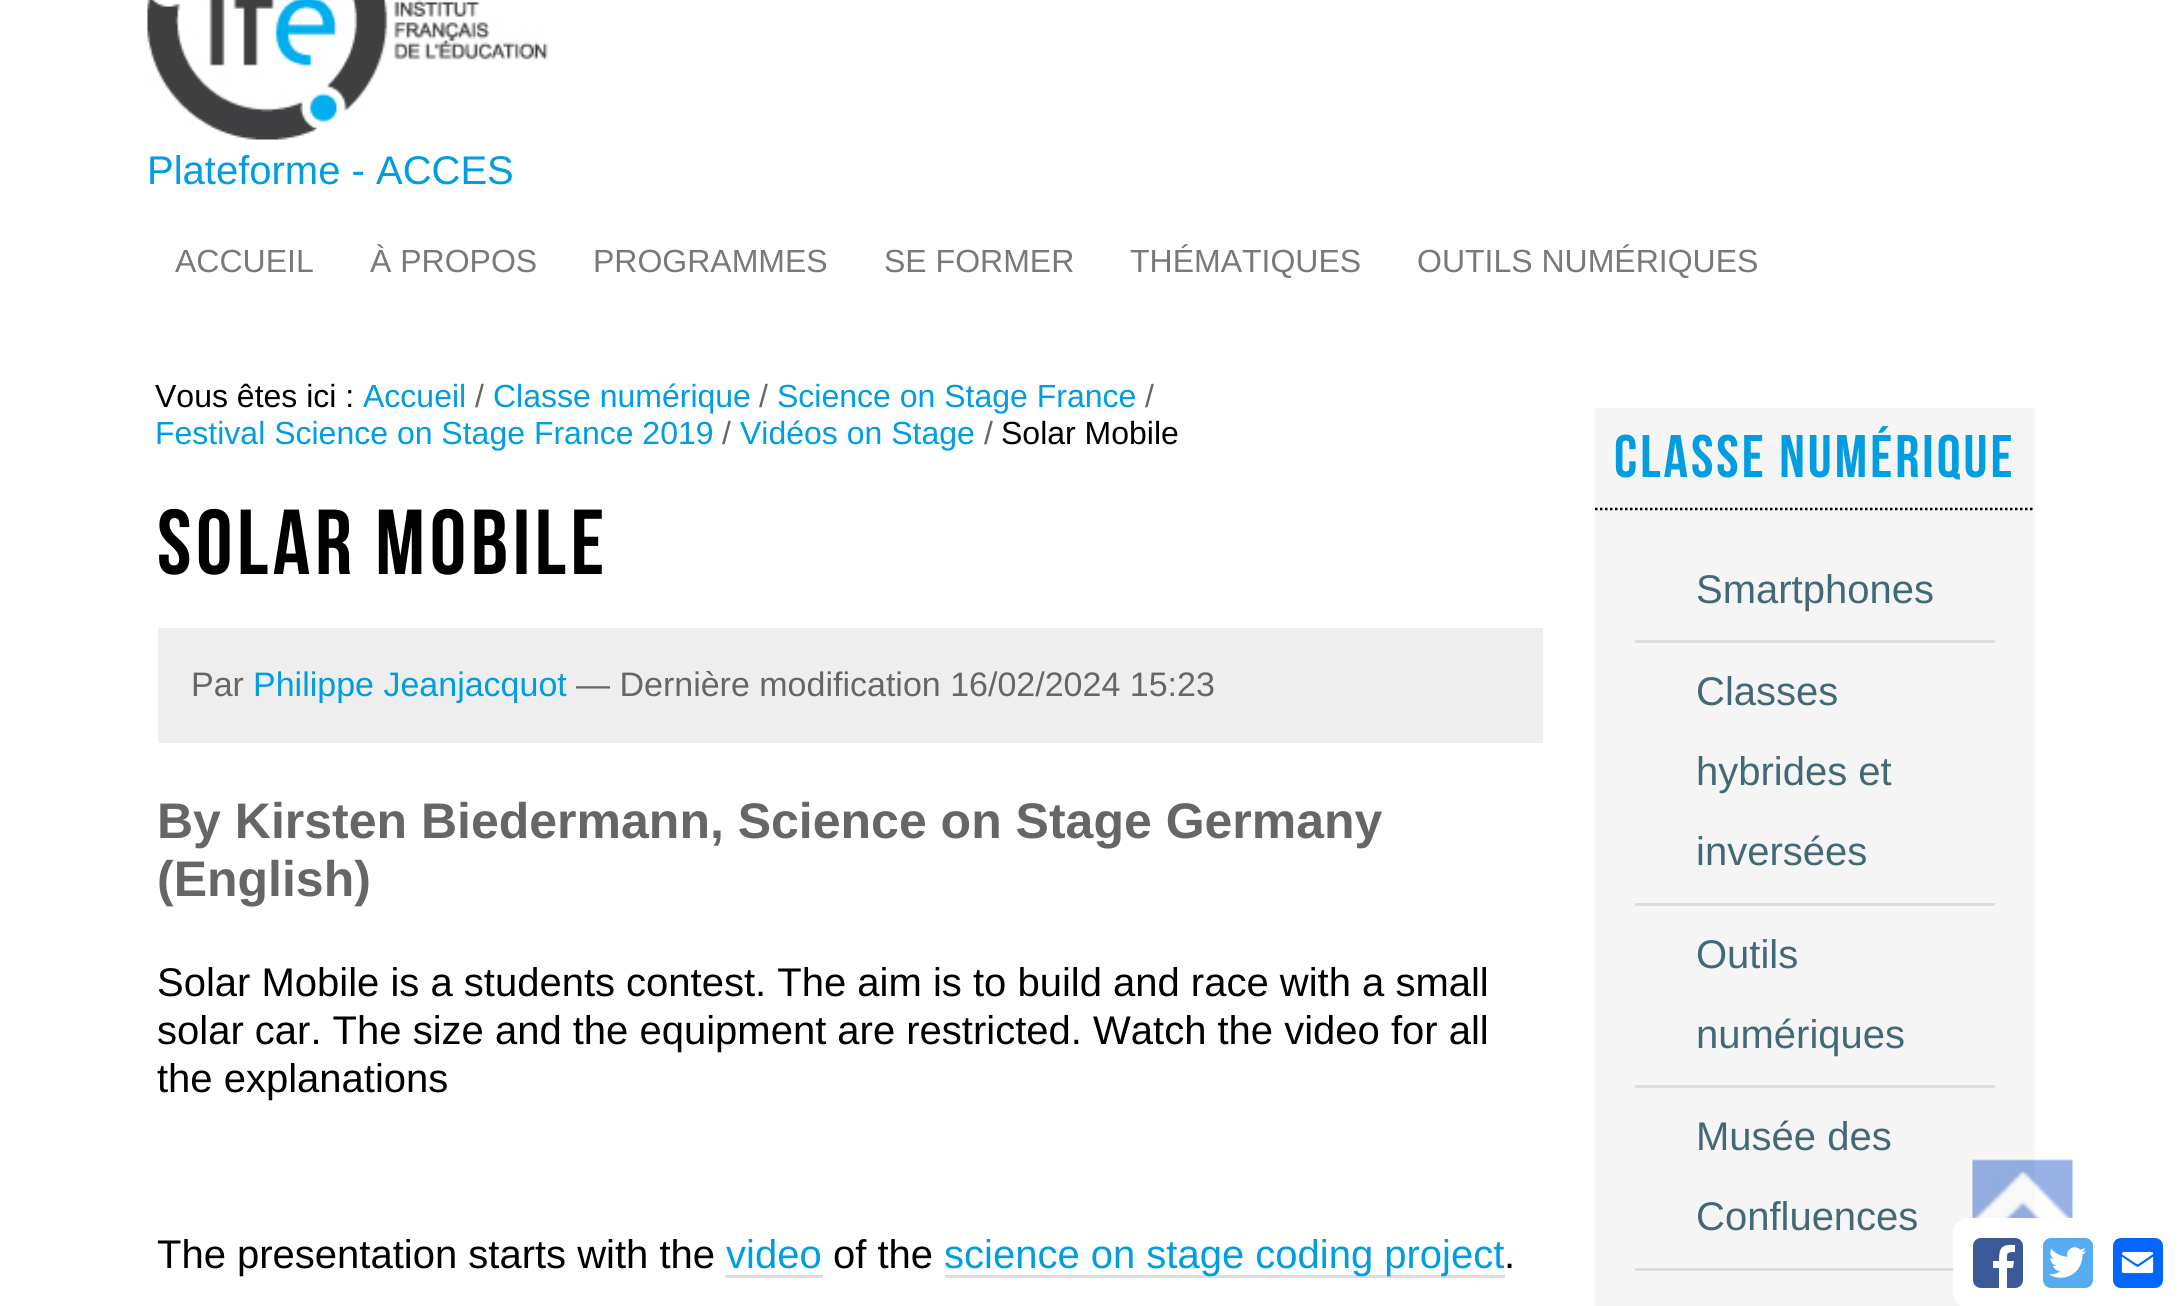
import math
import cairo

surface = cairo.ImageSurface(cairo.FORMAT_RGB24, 2181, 1306)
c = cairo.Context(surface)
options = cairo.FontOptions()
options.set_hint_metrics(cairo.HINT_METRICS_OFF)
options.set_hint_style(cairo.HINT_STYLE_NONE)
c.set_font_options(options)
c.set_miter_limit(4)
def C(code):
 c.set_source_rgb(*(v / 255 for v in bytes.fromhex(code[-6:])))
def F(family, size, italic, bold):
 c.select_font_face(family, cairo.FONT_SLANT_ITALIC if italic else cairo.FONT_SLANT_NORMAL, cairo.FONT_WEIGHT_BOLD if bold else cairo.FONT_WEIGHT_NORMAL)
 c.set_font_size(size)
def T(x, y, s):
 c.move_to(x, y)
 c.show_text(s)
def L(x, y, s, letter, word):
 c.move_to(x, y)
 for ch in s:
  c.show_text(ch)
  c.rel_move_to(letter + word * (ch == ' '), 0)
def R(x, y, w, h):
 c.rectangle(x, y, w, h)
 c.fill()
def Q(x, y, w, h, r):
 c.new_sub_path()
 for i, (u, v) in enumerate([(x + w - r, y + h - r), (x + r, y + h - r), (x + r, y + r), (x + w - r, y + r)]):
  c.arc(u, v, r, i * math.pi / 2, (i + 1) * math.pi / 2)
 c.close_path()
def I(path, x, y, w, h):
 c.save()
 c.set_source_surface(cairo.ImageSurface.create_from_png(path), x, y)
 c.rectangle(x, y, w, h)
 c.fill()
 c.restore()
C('ffffff')
c.paint()
I('1.png',147,0,401,140)
F('Liberation Sans',40,0,0)
C('009de0')
T(147,184,'Plateforme - ACCES')
F('Liberation Sans',32,0,0)
C('797979')
T(175,272,'ACCUEIL')
T(370,272,'À PROPOS')
T(593,272,'PROGRAMMES')
T(884,272,'SE FORMER')
T(1130,272,'THÉMATIQUES')
T(1417,272,'OUTILS NUMÉRIQUES')
C('000000')
T(155,407,'Vous êtes ici :')
C('009de0')
T(363,407,'Accueil')
C('666666')
T(475,407,'/')
C('009de0')
T(493,407,'Classe numérique')
C('666666')
T(759,407,'/')
C('009de0')
T(777,407,'Science on Stage France')
C('666666')
T(1145,407,'/')
C('009de0')
T(155,444,'Festival Science on Stage France 2019')
C('666666')
T(722,444,'/')
C('009de0')
T(740,444,'Vidéos on Stage')
C('666666')
T(984,444,'/')
C('000000')
T(1001,444,'Solar Mobile')
F('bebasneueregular',92,0,0)
L(157,574,'Solar Mobile',4.6,0)
C('eeeeee')
R(158,628,1385,115)
F('Liberation Sans',34,0,0)
C('666666')
T(191,696,'Par')
C('009de0')
T(253,696,'Philippe Jeanjacquot')
C('666666')
T(576,696,'— Dernière modification 16/02/2024 15:23')
F('Liberation Sans',50,0,1)
T(157,838,'By Kirsten Biedermann, Science on Stage Germany')
T(157,896,'(English)')
F('Liberation Sans',40,0,0)
C('000000')
T(157,996,'Solar Mobile is a students contest. The aim is to build and race with a small')
T(157,1044,'solar car. The size and the equipment are restricted. Watch the video for all')
T(157,1092,'the explanations')
T(157,1268,'The presentation starts with the')
C('009de0')
T(726,1268,'video')
C('dddddd')
R(725,1275,98,3)
C('000000')
T(833,1268,'of the')
C('dddddd')
R(945,1275,560,3)
C('009de0')
T(944,1268,'science on stage coding project')
C('000000')
T(1504,1268,'.')
C('f5f5f5')
R(1595,408,440,898)
C('ffffff')
Q(1953,1218,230,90,15)
c.fill()
C('3b5998')
Q(1973,1238,50,50,8)
c.fill()
C('ffffff')
c.new_path()
c.move_to(2007,1288)
c.line_to(2007,1268)
c.line_to(2013,1268)
c.line_to(2014,1261)
c.line_to(2007,1261)
c.curve_to(2007,1253,2006,1252,2015,1252)
c.line_to(2015,1245)
c.curve_to(2001,1244,1999,1248,1999,1261)
c.line_to(1993,1261)
c.line_to(1993,1268)
c.line_to(1999,1268)
c.line_to(1999,1288)
c.close_path()
c.fill()
I('2.png',2043,1238,50,50)
I('3.png',2113,1238,50,50)
c.new_path()
c.move_to(1595,509)
c.line_to(2035,509)
C('000000')
c.set_line_width(2.5)
c.set_dash([2.5,2.5])
c.stroke()
F('bebasneueregular',60,0,0)
C('009de0')
L(1614,477,'Classe numérique',3,0)
C('dddddd')
R(1635,640,360,3)
F('Liberation Sans',40,0,0)
C('436976')
T(1696,603,'Smartphones')
C('dddddd')
R(1635,903,360,3)
C('436976')
T(1696,705,'Classes')
T(1696,785,'hybrides et')
T(1696,865,'inversées')
C('dddddd')
R(1635,1085,360,3)
C('436976')
T(1696,968,'Outils')
T(1696,1048,'numériques')
C('dddddd')
R(1635,1268,318,3)
C('436976')
T(1696,1150,'Musée des')
T(1696,1230,'Confluences')
I('4.png',1972,1159,101,59)
surface.write_to_png('o.png')
